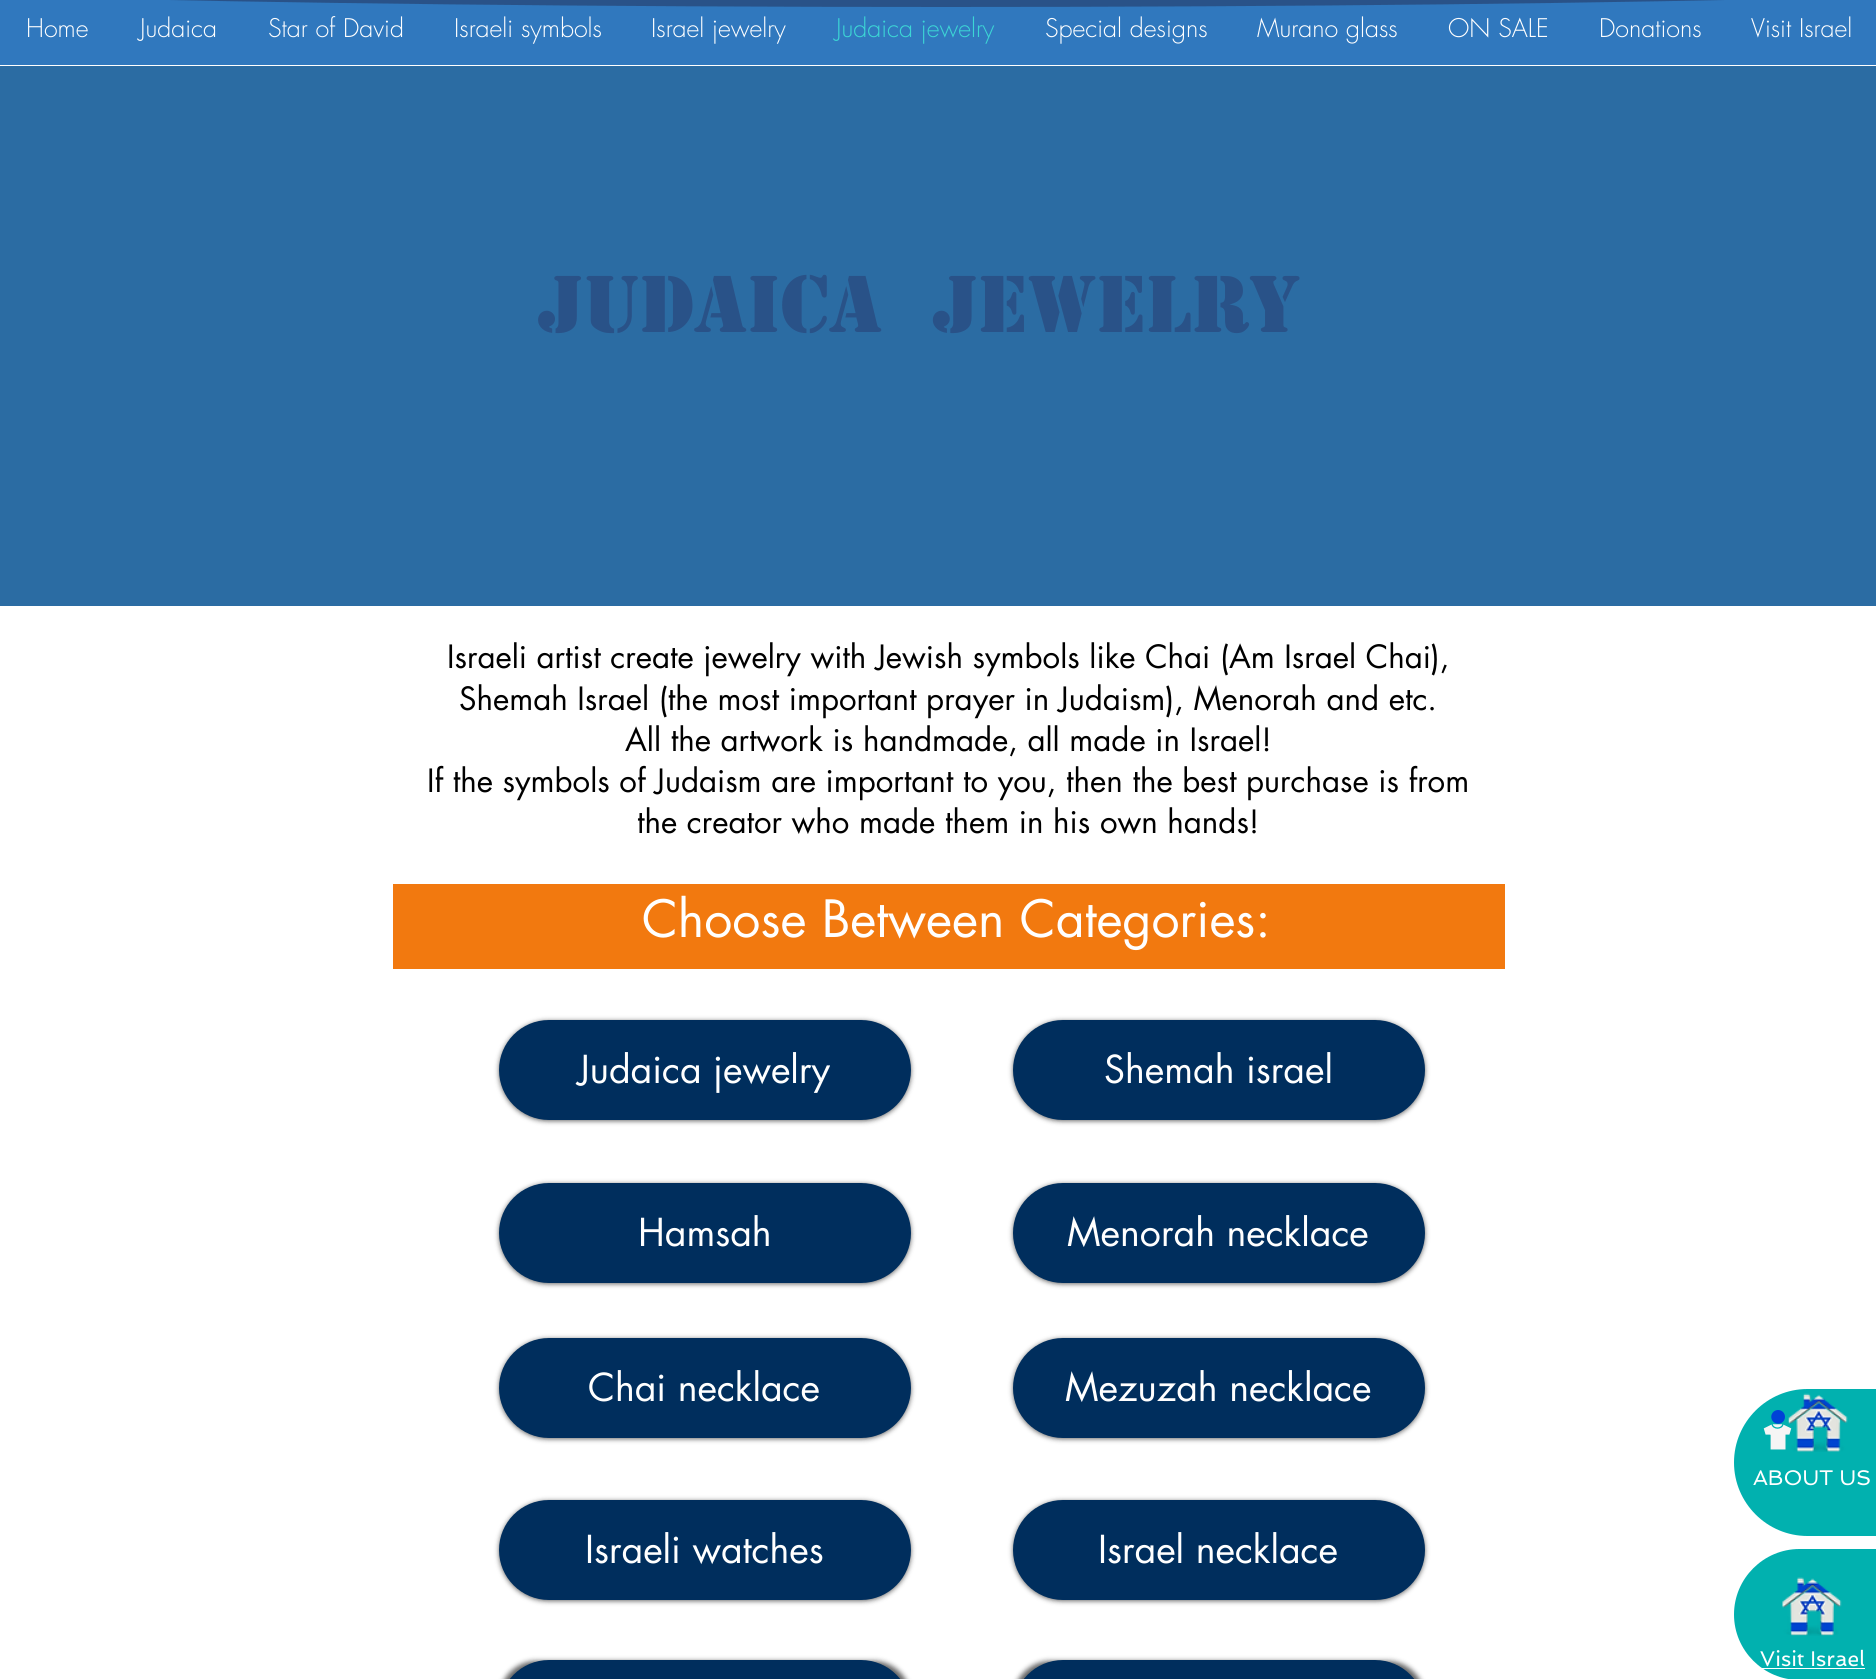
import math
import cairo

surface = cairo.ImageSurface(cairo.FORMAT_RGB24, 1876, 1679)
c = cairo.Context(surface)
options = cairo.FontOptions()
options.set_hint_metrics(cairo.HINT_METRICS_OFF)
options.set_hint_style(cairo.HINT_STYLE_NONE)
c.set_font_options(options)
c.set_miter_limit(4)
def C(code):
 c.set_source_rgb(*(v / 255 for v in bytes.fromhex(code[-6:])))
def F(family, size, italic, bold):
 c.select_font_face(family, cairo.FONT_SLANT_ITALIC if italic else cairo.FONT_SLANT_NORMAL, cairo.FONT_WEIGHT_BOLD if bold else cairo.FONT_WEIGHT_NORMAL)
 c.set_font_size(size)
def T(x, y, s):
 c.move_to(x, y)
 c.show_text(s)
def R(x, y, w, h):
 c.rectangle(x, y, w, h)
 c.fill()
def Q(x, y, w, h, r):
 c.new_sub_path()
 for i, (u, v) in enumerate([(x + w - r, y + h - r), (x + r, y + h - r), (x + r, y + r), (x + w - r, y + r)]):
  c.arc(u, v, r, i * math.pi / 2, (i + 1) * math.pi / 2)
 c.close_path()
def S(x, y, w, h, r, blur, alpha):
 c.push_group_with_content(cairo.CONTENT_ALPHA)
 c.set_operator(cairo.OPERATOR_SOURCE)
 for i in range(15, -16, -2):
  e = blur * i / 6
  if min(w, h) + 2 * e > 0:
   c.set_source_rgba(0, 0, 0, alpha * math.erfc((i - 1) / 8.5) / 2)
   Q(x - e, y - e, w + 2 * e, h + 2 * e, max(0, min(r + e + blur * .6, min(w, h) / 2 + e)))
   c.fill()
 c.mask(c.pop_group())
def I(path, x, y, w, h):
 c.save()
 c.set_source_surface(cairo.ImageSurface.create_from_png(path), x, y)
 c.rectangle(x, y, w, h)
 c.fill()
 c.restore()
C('ffffff')
c.paint()
C('3078be')
R(0,0,1876,65)
C('295288')
c.new_path()
c.move_to(946,7)
c.curve_to(1653,7,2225,-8,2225,-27)
c.line_to(-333,-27)
c.curve_to(-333,-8,239,7,946,7)
c.close_path()
c.fill()
F('futura Light',25,0,0)
C('ffffff')
T(26,37,'Home')
T(140,37,'Judaica')
T(268,37,'Star of David')
T(454,37,'Israeli symbols')
T(651,37,'Israel jewelry')
C('3cd6d5')
T(836,37,'Judaica jewelry')
C('ffffff')
T(1045,37,'Special designs')
T(1257,37,'Murano glass')
T(1448,37,'ON SALE')
T(1599,37,'Donations')
T(1751,37,'Visit Israel')
C('2b6ca3')
R(0,66,1876,540)
F('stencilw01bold',75,0,1)
C('295288')
T(538,332,'Judaica  jewelry')
F('futura',31.25,0,0)
C('000000')
T(447,668,'Israeli artist create jewelry with Jewish symbols like Chai (Am Israel Chai),')
T(459,710,'Shemah Israel (the most important prayer in Judaism), Menorah and etc.')
T(625,751,'All the artwork is handmade, all made in Israel!')
T(427,792,'If the symbols of Judaism are important to you, then the best purchase is from')
T(637,833,'the creator who made them in his own hands!')
C('f2790f')
R(393,884,1112,85)
F('futura',50,0,0)
C('ffffff')
T(642,937,'Choose Between Categories:')
C('000000')
S(499,1021,412,100,50,2.5,.6)
C('002e5d')
Q(499,1020,412,100,50)
c.fill()
F('futura',37.5,0,0)
C('ffffff')
T(578,1083,'Judaica jewelry')
C('000000')
S(1013,1021,412,100,50,2.5,.6)
C('002e5d')
Q(1013,1020,412,100,50)
c.fill()
C('ffffff')
T(1104,1083,'Shemah israel')
C('000000')
S(499,1184,412,100,50,2.5,.6)
C('002e5d')
Q(499,1183,412,100,50)
c.fill()
C('ffffff')
T(638,1246,'Hamsah')
C('000000')
S(1013,1184,412,100,50,2.5,.6)
C('002e5d')
Q(1013,1183,412,100,50)
c.fill()
C('ffffff')
T(1067,1246,'Menorah necklace')
C('000000')
S(499,1339,412,100,50,2.5,.6)
C('002e5d')
Q(499,1338,412,100,50)
c.fill()
C('ffffff')
T(588,1401,'Chai necklace')
C('000000')
S(1013,1339,412,100,50,2.5,.6)
C('002e5d')
Q(1013,1338,412,100,50)
c.fill()
C('ffffff')
T(1065,1401,'Mezuzah necklace')
C('000000')
S(499,1501,412,100,50,2.5,.6)
C('002e5d')
Q(499,1500,412,100,50)
c.fill()
C('ffffff')
T(585,1563,'Israeli watches')
C('000000')
S(1013,1501,412,100,50,2.5,.6)
C('002e5d')
Q(1013,1500,412,100,50)
c.fill()
C('ffffff')
T(1098,1563,'Israel necklace')
C('000000')
S(499,1661,412,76,50,2.5,.6)
C('002e5d')
Q(499,1660,412,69,50)
c.fill()
C('000000')
S(1013,1661,412,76,50,2.5,.6)
C('002e5d')
Q(1013,1660,412,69,50)
c.fill()
C('01b1af')
c.new_path()
c.move_to(1807.5,1389)
c.line_to(1876,1389)
c.line_to(1876,1536)
c.line_to(1807.5,1536)
c.curve_to(1767,1536,1734,1503,1734,1462.5)
c.curve_to(1734,1422,1767,1389,1807.5,1389)
c.close_path()
c.fill()
I('1.png',1771,1410,14,14)
I('3.png',1788,1393,60,59)
I('2.png',1763,1424,29,26)
F('Spinnaker',21.25,0,0)
C('ffffff')
T(1753,1485,'ABOUT US')
C('01b1af')
c.new_path()
c.move_to(1799.5,1549)
c.line_to(1876,1549)
c.line_to(1876,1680)
c.line_to(1799.5,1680)
c.curve_to(1763.5,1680,1734,1650.5,1734,1614.5)
c.curve_to(1734,1578.5,1763.5,1549,1799.5,1549)
c.close_path()
c.fill()
I('4.png',1782,1577,60,59)
C('ffffff')
T(1760,1666,'Visit Israel')
R(1760,1668,105,1)
surface.write_to_png('o.png')
